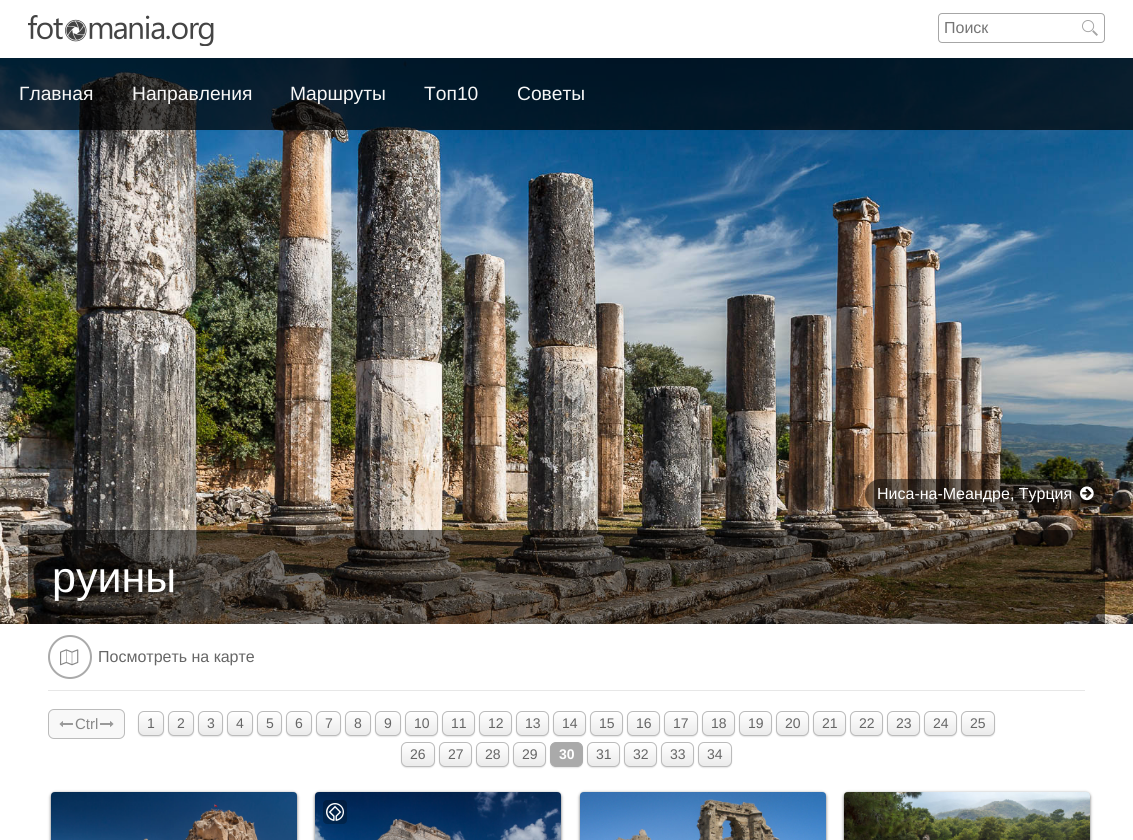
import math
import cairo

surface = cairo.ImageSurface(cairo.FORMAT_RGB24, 1133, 840)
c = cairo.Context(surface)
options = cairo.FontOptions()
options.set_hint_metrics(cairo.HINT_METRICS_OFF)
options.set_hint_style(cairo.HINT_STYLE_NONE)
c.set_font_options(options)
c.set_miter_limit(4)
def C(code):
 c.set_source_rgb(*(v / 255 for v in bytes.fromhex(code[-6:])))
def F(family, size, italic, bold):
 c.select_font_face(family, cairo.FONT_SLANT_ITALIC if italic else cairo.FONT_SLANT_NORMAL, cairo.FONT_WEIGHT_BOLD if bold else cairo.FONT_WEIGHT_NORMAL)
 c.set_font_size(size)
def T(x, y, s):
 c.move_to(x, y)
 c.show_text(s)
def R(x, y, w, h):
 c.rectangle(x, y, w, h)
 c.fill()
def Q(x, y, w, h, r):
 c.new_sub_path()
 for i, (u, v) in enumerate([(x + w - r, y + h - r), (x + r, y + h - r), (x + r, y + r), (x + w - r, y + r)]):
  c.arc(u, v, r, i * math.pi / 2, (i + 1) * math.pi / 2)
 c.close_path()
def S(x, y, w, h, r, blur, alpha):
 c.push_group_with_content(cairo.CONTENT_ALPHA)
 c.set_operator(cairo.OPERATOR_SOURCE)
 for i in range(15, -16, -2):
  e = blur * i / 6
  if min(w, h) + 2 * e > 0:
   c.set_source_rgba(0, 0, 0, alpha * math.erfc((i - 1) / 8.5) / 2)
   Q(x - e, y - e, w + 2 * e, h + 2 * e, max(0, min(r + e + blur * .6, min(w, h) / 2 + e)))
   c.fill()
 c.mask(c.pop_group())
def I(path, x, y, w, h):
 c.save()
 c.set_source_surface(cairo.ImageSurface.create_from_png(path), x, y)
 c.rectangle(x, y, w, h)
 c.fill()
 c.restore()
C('ffffff')
c.paint()
I('1.png',28,15,186,31)
Q(938.5,13.5,166,29,3.5)
C('a6a6a6')
c.set_line_width(1)
c.stroke()
F('Liberation Sans',16,0,0)
C('757575')
T(944,33,'Поиск')
I('2.png',1082,20,16,16)
I('3.png',0,58,1133,566)
c.set_source_rgba(0,0,0,0.7)
R(0,58,1133,72)
F('Liberation Sans',19.25,0,0)
C('f7f7f7')
T(19,100,'Главная')
T(132,100,'Направления')
T(290,100,'Маршруты')
T(424,100,'Топ10')
T(517,100,'Советы')
c.set_source_rgba(0,0,0,0.5)
Q(865,479,240,31,15.5)
c.fill()
F('Liberation Sans',16,0,0)
C('ffffff')
T(877,499,'Ниса-на-Меандре, Турция')
I('4.png',1080,486,14,15)
c.set_source_rgba(0,0,0,0.5)
R(28,530,1077,94)
F('Liberation Sans',43,0,0)
C('ffffff')
T(52,592,'руины')
C('e7e7e7')
R(48,690,1037,1)
c.new_path()
c.arc(70,657,21,0,2 * math.pi)
C('aaaaaa')
c.set_line_width(2)
c.stroke()
I('5.png',60,649,19,17)
F('Liberation Sans',16,0,0)
C('666666')
T(98,662,'Посмотреть на карте')
C('f8f8f8')
Q(48.5,709.5,76,29,5.5)
c.fill_preserve()
C('bbbbbb')
c.set_line_width(1)
c.stroke()
I('6.png',59,721,14,6)
F('Liberation Sans',15,0,0)
C('888888')
T(75,729,'Ctrl')
I('7.png',100,721,14,6)
C('000000')
S(138,712,26,25,6,.5,.1)
c.save()
Q(138,711,26,25,6)
c.clip()
gradient = cairo.LinearGradient(151,712,151,735)
gradient.add_color_stop_rgba(0,1,1,1,1)
gradient.add_color_stop_rgba(1,0.922,0.922,0.922,1)
c.set_source(gradient)
R(138,712,26,23)
c.restore()
Q(138.5,711.5,25,24,5.5)
C('bbbbbb')
c.stroke()
F('Liberation Sans',14,0,0)
C('666666')
T(147,728,'1')
C('000000')
S(168,712,26,25,6,.5,.1)
c.save()
Q(168,711,26,25,6)
c.clip()
gradient = cairo.LinearGradient(181,712,181,735)
gradient.add_color_stop_rgba(0,1,1,1,1)
gradient.add_color_stop_rgba(1,0.922,0.922,0.922,1)
c.set_source(gradient)
R(168,712,26,23)
c.restore()
Q(168.5,711.5,25,24,5.5)
C('bbbbbb')
c.stroke()
C('666666')
T(177,728,'2')
C('000000')
S(198,712,25,25,6,.5,.1)
c.save()
Q(198,711,25,25,6)
c.clip()
gradient = cairo.LinearGradient(211,712,211,735)
gradient.add_color_stop_rgba(0,1,1,1,1)
gradient.add_color_stop_rgba(1,0.922,0.922,0.922,1)
c.set_source(gradient)
R(198,712,25,23)
c.restore()
Q(198.5,711.5,24,24,5.5)
C('bbbbbb')
c.stroke()
C('666666')
T(207,728,'3')
C('000000')
S(227,712,26,25,6,.5,.1)
c.save()
Q(227,711,26,25,6)
c.clip()
gradient = cairo.LinearGradient(240,712,240,735)
gradient.add_color_stop_rgba(0,1,1,1,1)
gradient.add_color_stop_rgba(1,0.922,0.922,0.922,1)
c.set_source(gradient)
R(227,712,26,23)
c.restore()
Q(227.5,711.5,25,24,5.5)
C('bbbbbb')
c.stroke()
C('666666')
T(236,728,'4')
C('000000')
S(257,712,25,25,6,.5,.1)
c.save()
Q(257,711,25,25,6)
c.clip()
gradient = cairo.LinearGradient(270,712,270,735)
gradient.add_color_stop_rgba(0,1,1,1,1)
gradient.add_color_stop_rgba(1,0.922,0.922,0.922,1)
c.set_source(gradient)
R(257,712,25,23)
c.restore()
Q(257.5,711.5,24,24,5.5)
C('bbbbbb')
c.stroke()
C('666666')
T(266,728,'5')
C('000000')
S(286,712,26,25,6,.5,.1)
c.save()
Q(286,711,26,25,6)
c.clip()
gradient = cairo.LinearGradient(299,712,299,735)
gradient.add_color_stop_rgba(0,1,1,1,1)
gradient.add_color_stop_rgba(1,0.922,0.922,0.922,1)
c.set_source(gradient)
R(286,712,26,23)
c.restore()
Q(286.5,711.5,25,24,5.5)
C('bbbbbb')
c.stroke()
C('666666')
T(295,728,'6')
C('000000')
S(316,712,25,25,6,.5,.1)
c.save()
Q(316,711,25,25,6)
c.clip()
gradient = cairo.LinearGradient(329,712,329,735)
gradient.add_color_stop_rgba(0,1,1,1,1)
gradient.add_color_stop_rgba(1,0.922,0.922,0.922,1)
c.set_source(gradient)
R(316,712,25,23)
c.restore()
Q(316.5,711.5,24,24,5.5)
C('bbbbbb')
c.stroke()
C('666666')
T(325,728,'7')
C('000000')
S(345,712,26,25,6,.5,.1)
c.save()
Q(345,711,26,25,6)
c.clip()
gradient = cairo.LinearGradient(358,712,358,735)
gradient.add_color_stop_rgba(0,1,1,1,1)
gradient.add_color_stop_rgba(1,0.922,0.922,0.922,1)
c.set_source(gradient)
R(345,712,26,23)
c.restore()
Q(345.5,711.5,25,24,5.5)
C('bbbbbb')
c.stroke()
C('666666')
T(354,728,'8')
C('000000')
S(375,712,26,25,6,.5,.1)
c.save()
Q(375,711,26,25,6)
c.clip()
gradient = cairo.LinearGradient(388,712,388,735)
gradient.add_color_stop_rgba(0,1,1,1,1)
gradient.add_color_stop_rgba(1,0.922,0.922,0.922,1)
c.set_source(gradient)
R(375,712,26,23)
c.restore()
Q(375.5,711.5,25,24,5.5)
C('bbbbbb')
c.stroke()
C('666666')
T(384,728,'9')
C('000000')
S(405,712,33,25,6,.5,.1)
c.save()
Q(405,711,33,25,6)
c.clip()
gradient = cairo.LinearGradient(422,712,422,735)
gradient.add_color_stop_rgba(0,1,1,1,1)
gradient.add_color_stop_rgba(1,0.922,0.922,0.922,1)
c.set_source(gradient)
R(405,712,33,23)
c.restore()
Q(405.5,711.5,32,24,5.5)
C('bbbbbb')
c.stroke()
C('666666')
T(414,728,'10')
C('000000')
S(442,712,33,25,6,.5,.1)
c.save()
Q(442,711,33,25,6)
c.clip()
gradient = cairo.LinearGradient(459,712,459,735)
gradient.add_color_stop_rgba(0,1,1,1,1)
gradient.add_color_stop_rgba(1,0.922,0.922,0.922,1)
c.set_source(gradient)
R(442,712,33,23)
c.restore()
Q(442.5,711.5,32,24,5.5)
C('bbbbbb')
c.stroke()
C('666666')
T(451,728,'11')
C('000000')
S(479,712,33,25,6,.5,.1)
c.save()
Q(479,711,33,25,6)
c.clip()
gradient = cairo.LinearGradient(496,712,496,735)
gradient.add_color_stop_rgba(0,1,1,1,1)
gradient.add_color_stop_rgba(1,0.922,0.922,0.922,1)
c.set_source(gradient)
R(479,712,33,23)
c.restore()
Q(479.5,711.5,32,24,5.5)
C('bbbbbb')
c.stroke()
C('666666')
T(488,728,'12')
C('000000')
S(516,712,33,25,6,.5,.1)
c.save()
Q(516,711,33,25,6)
c.clip()
gradient = cairo.LinearGradient(533,712,533,735)
gradient.add_color_stop_rgba(0,1,1,1,1)
gradient.add_color_stop_rgba(1,0.922,0.922,0.922,1)
c.set_source(gradient)
R(516,712,33,23)
c.restore()
Q(516.5,711.5,32,24,5.5)
C('bbbbbb')
c.stroke()
C('666666')
T(525,728,'13')
C('000000')
S(553,712,33,25,6,.5,.1)
c.save()
Q(553,711,33,25,6)
c.clip()
gradient = cairo.LinearGradient(570,712,570,735)
gradient.add_color_stop_rgba(0,1,1,1,1)
gradient.add_color_stop_rgba(1,0.922,0.922,0.922,1)
c.set_source(gradient)
R(553,712,33,23)
c.restore()
Q(553.5,711.5,32,24,5.5)
C('bbbbbb')
c.stroke()
C('666666')
T(562,728,'14')
C('000000')
S(590,712,33,25,6,.5,.1)
c.save()
Q(590,711,33,25,6)
c.clip()
gradient = cairo.LinearGradient(607,712,607,735)
gradient.add_color_stop_rgba(0,1,1,1,1)
gradient.add_color_stop_rgba(1,0.922,0.922,0.922,1)
c.set_source(gradient)
R(590,712,33,23)
c.restore()
Q(590.5,711.5,32,24,5.5)
C('bbbbbb')
c.stroke()
C('666666')
T(599,728,'15')
C('000000')
S(627,712,33,25,6,.5,.1)
c.save()
Q(627,711,33,25,6)
c.clip()
gradient = cairo.LinearGradient(644,712,644,735)
gradient.add_color_stop_rgba(0,1,1,1,1)
gradient.add_color_stop_rgba(1,0.922,0.922,0.922,1)
c.set_source(gradient)
R(627,712,33,23)
c.restore()
Q(627.5,711.5,32,24,5.5)
C('bbbbbb')
c.stroke()
C('666666')
T(636,728,'16')
C('000000')
S(664,712,34,25,6,.5,.1)
c.save()
Q(664,711,34,25,6)
c.clip()
gradient = cairo.LinearGradient(681,712,681,735)
gradient.add_color_stop_rgba(0,1,1,1,1)
gradient.add_color_stop_rgba(1,0.922,0.922,0.922,1)
c.set_source(gradient)
R(664,712,34,23)
c.restore()
Q(664.5,711.5,33,24,5.5)
C('bbbbbb')
c.stroke()
C('666666')
T(673,728,'17')
C('000000')
S(702,712,33,25,6,.5,.1)
c.save()
Q(702,711,33,25,6)
c.clip()
gradient = cairo.LinearGradient(719,712,719,735)
gradient.add_color_stop_rgba(0,1,1,1,1)
gradient.add_color_stop_rgba(1,0.922,0.922,0.922,1)
c.set_source(gradient)
R(702,712,33,23)
c.restore()
Q(702.5,711.5,32,24,5.5)
C('bbbbbb')
c.stroke()
C('666666')
T(711,728,'18')
C('000000')
S(739,712,33,25,6,.5,.1)
c.save()
Q(739,711,33,25,6)
c.clip()
gradient = cairo.LinearGradient(756,712,756,735)
gradient.add_color_stop_rgba(0,1,1,1,1)
gradient.add_color_stop_rgba(1,0.922,0.922,0.922,1)
c.set_source(gradient)
R(739,712,33,23)
c.restore()
Q(739.5,711.5,32,24,5.5)
C('bbbbbb')
c.stroke()
C('666666')
T(748,728,'19')
C('000000')
S(776,712,33,25,6,.5,.1)
c.save()
Q(776,711,33,25,6)
c.clip()
gradient = cairo.LinearGradient(793,712,793,735)
gradient.add_color_stop_rgba(0,1,1,1,1)
gradient.add_color_stop_rgba(1,0.922,0.922,0.922,1)
c.set_source(gradient)
R(776,712,33,23)
c.restore()
Q(776.5,711.5,32,24,5.5)
C('bbbbbb')
c.stroke()
C('666666')
T(785,728,'20')
C('000000')
S(813,712,33,25,6,.5,.1)
c.save()
Q(813,711,33,25,6)
c.clip()
gradient = cairo.LinearGradient(830,712,830,735)
gradient.add_color_stop_rgba(0,1,1,1,1)
gradient.add_color_stop_rgba(1,0.922,0.922,0.922,1)
c.set_source(gradient)
R(813,712,33,23)
c.restore()
Q(813.5,711.5,32,24,5.5)
C('bbbbbb')
c.stroke()
C('666666')
T(822,728,'21')
C('000000')
S(850,712,33,25,6,.5,.1)
c.save()
Q(850,711,33,25,6)
c.clip()
gradient = cairo.LinearGradient(867,712,867,735)
gradient.add_color_stop_rgba(0,1,1,1,1)
gradient.add_color_stop_rgba(1,0.922,0.922,0.922,1)
c.set_source(gradient)
R(850,712,33,23)
c.restore()
Q(850.5,711.5,32,24,5.5)
C('bbbbbb')
c.stroke()
C('666666')
T(859,728,'22')
C('000000')
S(887,712,33,25,6,.5,.1)
c.save()
Q(887,711,33,25,6)
c.clip()
gradient = cairo.LinearGradient(904,712,904,735)
gradient.add_color_stop_rgba(0,1,1,1,1)
gradient.add_color_stop_rgba(1,0.922,0.922,0.922,1)
c.set_source(gradient)
R(887,712,33,23)
c.restore()
Q(887.5,711.5,32,24,5.5)
C('bbbbbb')
c.stroke()
C('666666')
T(896,728,'23')
C('000000')
S(924,712,33,25,6,.5,.1)
c.save()
Q(924,711,33,25,6)
c.clip()
gradient = cairo.LinearGradient(941,712,941,735)
gradient.add_color_stop_rgba(0,1,1,1,1)
gradient.add_color_stop_rgba(1,0.922,0.922,0.922,1)
c.set_source(gradient)
R(924,712,33,23)
c.restore()
Q(924.5,711.5,32,24,5.5)
C('bbbbbb')
c.stroke()
C('666666')
T(933,728,'24')
C('000000')
S(961,712,34,25,6,.5,.1)
c.save()
Q(961,711,34,25,6)
c.clip()
gradient = cairo.LinearGradient(978,712,978,735)
gradient.add_color_stop_rgba(0,1,1,1,1)
gradient.add_color_stop_rgba(1,0.922,0.922,0.922,1)
c.set_source(gradient)
R(961,712,34,23)
c.restore()
Q(961.5,711.5,33,24,5.5)
C('bbbbbb')
c.stroke()
C('666666')
T(970,728,'25')
C('000000')
S(401,743,34,25,6,.5,.1)
c.save()
Q(401,742,34,25,6)
c.clip()
gradient = cairo.LinearGradient(418,743,418,766)
gradient.add_color_stop_rgba(0,1,1,1,1)
gradient.add_color_stop_rgba(1,0.922,0.922,0.922,1)
c.set_source(gradient)
R(401,743,34,23)
c.restore()
Q(401.5,742.5,33,24,5.5)
C('bbbbbb')
c.stroke()
C('666666')
T(410,759,'26')
C('000000')
S(439,743,33,25,6,.5,.1)
c.save()
Q(439,742,33,25,6)
c.clip()
gradient = cairo.LinearGradient(456,743,456,766)
gradient.add_color_stop_rgba(0,1,1,1,1)
gradient.add_color_stop_rgba(1,0.922,0.922,0.922,1)
c.set_source(gradient)
R(439,743,33,23)
c.restore()
Q(439.5,742.5,32,24,5.5)
C('bbbbbb')
c.stroke()
C('666666')
T(448,759,'27')
C('000000')
S(476,743,33,25,6,.5,.1)
c.save()
Q(476,742,33,25,6)
c.clip()
gradient = cairo.LinearGradient(493,743,493,766)
gradient.add_color_stop_rgba(0,1,1,1,1)
gradient.add_color_stop_rgba(1,0.922,0.922,0.922,1)
c.set_source(gradient)
R(476,743,33,23)
c.restore()
Q(476.5,742.5,32,24,5.5)
C('bbbbbb')
c.stroke()
C('666666')
T(485,759,'28')
C('000000')
S(513,743,33,25,6,.5,.1)
c.save()
Q(513,742,33,25,6)
c.clip()
gradient = cairo.LinearGradient(530,743,530,766)
gradient.add_color_stop_rgba(0,1,1,1,1)
gradient.add_color_stop_rgba(1,0.922,0.922,0.922,1)
c.set_source(gradient)
R(513,743,33,23)
c.restore()
Q(513.5,742.5,32,24,5.5)
C('bbbbbb')
c.stroke()
C('666666')
T(522,759,'29')
C('000000')
S(550,743,33,25,6,.5,.1)
C('aaaaaa')
Q(550.5,742.5,32,24,5.5)
c.fill_preserve()
c.stroke()
F('Liberation Sans',14,0,1)
C('ffffff')
T(559,759,'30')
C('000000')
S(587,743,33,25,6,.5,.1)
c.save()
Q(587,742,33,25,6)
c.clip()
gradient = cairo.LinearGradient(604,743,604,766)
gradient.add_color_stop_rgba(0,1,1,1,1)
gradient.add_color_stop_rgba(1,0.922,0.922,0.922,1)
c.set_source(gradient)
R(587,743,33,23)
c.restore()
Q(587.5,742.5,32,24,5.5)
C('bbbbbb')
c.stroke()
F('Liberation Sans',14,0,0)
C('666666')
T(596,759,'31')
C('000000')
S(624,743,33,25,6,.5,.1)
c.save()
Q(624,742,33,25,6)
c.clip()
gradient = cairo.LinearGradient(641,743,641,766)
gradient.add_color_stop_rgba(0,1,1,1,1)
gradient.add_color_stop_rgba(1,0.922,0.922,0.922,1)
c.set_source(gradient)
R(624,743,33,23)
c.restore()
Q(624.5,742.5,32,24,5.5)
C('bbbbbb')
c.stroke()
C('666666')
T(633,759,'32')
C('000000')
S(661,743,33,25,6,.5,.1)
c.save()
Q(661,742,33,25,6)
c.clip()
gradient = cairo.LinearGradient(678,743,678,766)
gradient.add_color_stop_rgba(0,1,1,1,1)
gradient.add_color_stop_rgba(1,0.922,0.922,0.922,1)
c.set_source(gradient)
R(661,743,33,23)
c.restore()
Q(661.5,742.5,32,24,5.5)
C('bbbbbb')
c.stroke()
C('666666')
T(670,759,'33')
C('000000')
S(698,743,34,25,6,.5,.1)
c.save()
Q(698,742,34,25,6)
c.clip()
gradient = cairo.LinearGradient(715,743,715,766)
gradient.add_color_stop_rgba(0,1,1,1,1)
gradient.add_color_stop_rgba(1,0.922,0.922,0.922,1)
c.set_source(gradient)
R(698,743,34,23)
c.restore()
Q(698.5,742.5,33,24,5.5)
C('bbbbbb')
c.stroke()
C('666666')
T(707,759,'34')
C('000000')
S(51,793,246,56,4,1.5,.6)
I('8.png',51,792,246,48)
S(315,793,246,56,4,1.5,.6)
I('9.png',315,792,246,48)
c.set_source_rgba(0,0,0,0.25)
Q(323,800,24,24,4)
c.fill()
I('10.png',326,803,18,18)
C('000000')
S(580,793,246,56,4,1.5,.6)
I('11.png',580,792,246,48)
S(844,793,246,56,4,1.5,.6)
I('12.png',844,792,246,48)
surface.write_to_png('o.png')
